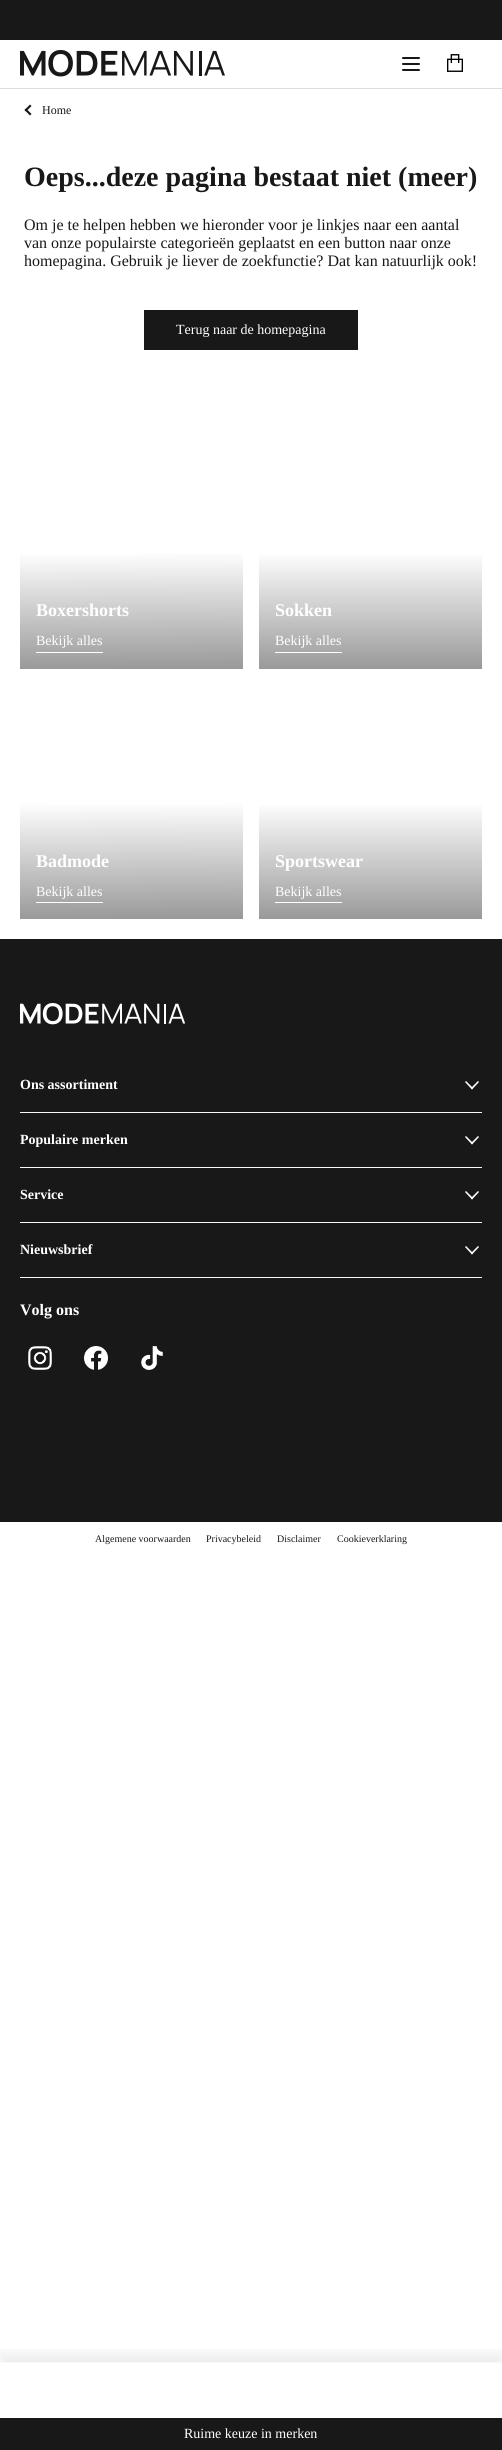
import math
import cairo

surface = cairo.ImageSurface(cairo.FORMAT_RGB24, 502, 2450)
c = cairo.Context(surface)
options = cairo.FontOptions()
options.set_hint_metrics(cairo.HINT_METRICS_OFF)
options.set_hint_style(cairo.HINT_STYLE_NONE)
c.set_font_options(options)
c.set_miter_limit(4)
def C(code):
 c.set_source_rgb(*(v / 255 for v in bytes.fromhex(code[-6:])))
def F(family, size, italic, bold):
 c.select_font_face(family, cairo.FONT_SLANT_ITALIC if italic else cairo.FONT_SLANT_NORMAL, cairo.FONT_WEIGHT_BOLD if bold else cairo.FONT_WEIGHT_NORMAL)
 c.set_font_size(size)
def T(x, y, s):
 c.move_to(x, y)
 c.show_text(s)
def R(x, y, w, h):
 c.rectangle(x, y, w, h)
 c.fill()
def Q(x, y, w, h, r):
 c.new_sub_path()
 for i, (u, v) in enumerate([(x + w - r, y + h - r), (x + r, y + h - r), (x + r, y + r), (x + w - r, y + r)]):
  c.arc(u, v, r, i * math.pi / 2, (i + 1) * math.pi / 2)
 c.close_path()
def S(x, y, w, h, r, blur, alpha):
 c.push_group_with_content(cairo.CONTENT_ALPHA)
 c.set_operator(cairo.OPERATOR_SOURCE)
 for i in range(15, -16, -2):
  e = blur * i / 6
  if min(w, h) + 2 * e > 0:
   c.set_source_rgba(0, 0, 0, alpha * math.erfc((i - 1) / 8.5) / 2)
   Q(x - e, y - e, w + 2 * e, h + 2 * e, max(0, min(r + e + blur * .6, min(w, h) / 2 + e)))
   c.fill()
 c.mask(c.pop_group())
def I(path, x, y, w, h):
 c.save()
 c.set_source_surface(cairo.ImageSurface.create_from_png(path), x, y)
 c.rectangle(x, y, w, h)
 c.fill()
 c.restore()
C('ffffff')
c.paint()
C('181818')
R(0,0,502,40)
C('e0dcdc')
R(0,88,502,1)
I('1.png',20,50,205,27)
C('181818')
Q(402,63,18,2,1)
c.fill()
Q(402,57,18,2,1)
c.fill()
Q(402,69,18,2,1)
c.fill()
I('2.png',447,54,16,18)
c.new_path()
c.move_to(31.5,114)
c.line_to(30,115.5)
c.line_to(24.5,110)
c.line_to(26,108.5)
c.close_path()
c.fill()
c.new_path()
c.move_to(31.5,106)
c.line_to(26,111.5)
c.line_to(24.5,110)
c.line_to(30,104.5)
c.close_path()
c.fill()
F('Liberation Serif',12,0,0)
T(42,114,'Home')
F('Liberation Serif',28,0,1)
T(24,186,'Oeps...deze pagina bestaat niet (meer)')
F('Liberation Serif',16,0,0)
T(24,230,'Om je te helpen hebben we hieronder voor je linkjes naar een aantal')
T(24,248,'van onze populairste categorieën geplaatst en een button naar onze')
T(24,266,'homepagina. Gebruik je liever de zoekfunctie? Dat kan natuurlijk ook!')
R(144,310,214,40)
F('Liberation Serif',14,0,0)
C('ffffff')
T(176,334,'Terug naar de homepagina')
gradient = cairo.LinearGradient(131,434,132,669)
gradient.add_color_stop_rgba(.5,1,1,1,1)
gradient.add_color_stop_rgba(1,0.6,0.6,0.6,1)
c.set_source(gradient)
R(20,554,223,115)
F('Liberation Serif',18,0,1)
C('ffffff')
T(36,616,'Boxershorts')
R(36,652,67,1)
F('Liberation Serif',14,0,0)
T(36,645,'Bekijk alles')
gradient = cairo.LinearGradient(371,434,371,669)
gradient.add_color_stop_rgba(.5,1,1,1,1)
gradient.add_color_stop_rgba(1,0.6,0.6,0.6,1)
c.set_source(gradient)
R(259,554,223,115)
F('Liberation Serif',18,0,1)
C('ffffff')
T(275,616,'Sokken')
R(275,652,67,1)
F('Liberation Serif',14,0,0)
T(275,645,'Bekijk alles')
gradient = cairo.LinearGradient(131,685,132,919)
gradient.add_color_stop_rgba(.5,1,1,1,1)
gradient.add_color_stop_rgba(1,0.6,0.6,0.6,1)
c.set_source(gradient)
R(20,804,223,115)
F('Liberation Serif',18,0,1)
C('ffffff')
T(36,867,'Badmode')
R(36,902,67,1)
F('Liberation Serif',14,0,0)
T(36,896,'Bekijk alles')
gradient = cairo.LinearGradient(371,685,371,919)
gradient.add_color_stop_rgba(.5,1,1,1,1)
gradient.add_color_stop_rgba(1,0.6,0.6,0.6,1)
c.set_source(gradient)
R(259,805,223,114)
F('Liberation Serif',18,0,1)
C('ffffff')
T(275,867,'Sportswear')
R(275,902,67,1)
F('Liberation Serif',14,0,0)
T(275,896,'Bekijk alles')
C('181818')
R(0,939,502,583)
I('3.png',20,1003,166,22)
C('fbf6f1')
R(20,1112,462,1)
F('Liberation Serif',14,0,1)
C('ffffff')
T(20,1089,'Ons assortiment')
c.new_path()
c.move_to(466,1081)
c.line_to(473,1088)
c.line_to(472,1089.5)
c.line_to(465,1082)
c.close_path()
c.fill()
c.new_path()
c.move_to(471,1088)
c.line_to(478,1081)
c.line_to(479,1082)
c.line_to(472,1089.5)
c.close_path()
c.fill()
C('fbf6f1')
R(20,1167,462,1)
C('ffffff')
T(20,1144,'Populaire merken')
c.new_path()
c.move_to(466,1136)
c.line_to(473,1143)
c.line_to(472,1144.5)
c.line_to(465,1137)
c.close_path()
c.fill()
c.new_path()
c.move_to(471,1143)
c.line_to(478,1136)
c.line_to(479,1137)
c.line_to(472,1144.5)
c.close_path()
c.fill()
C('fbf6f1')
R(20,1222,462,1)
C('ffffff')
T(20,1199,'Service')
c.new_path()
c.move_to(466,1191)
c.line_to(473,1198)
c.line_to(472,1199.5)
c.line_to(465,1192)
c.close_path()
c.fill()
c.new_path()
c.move_to(471,1198)
c.line_to(478,1191)
c.line_to(479,1192)
c.line_to(472,1199.5)
c.close_path()
c.fill()
C('fbf6f1')
R(20,1277,462,1)
C('ffffff')
T(20,1254,'Nieuwsbrief')
c.new_path()
c.move_to(466,1246)
c.line_to(473,1253)
c.line_to(472,1254.5)
c.line_to(465,1247)
c.close_path()
c.fill()
c.new_path()
c.move_to(471,1253)
c.line_to(478,1246)
c.line_to(479,1247)
c.line_to(472,1254.5)
c.close_path()
c.fill()
F('Liberation Serif',16,0,1)
T(20,1315,'Volg ons')
I('4.png',28,1346,24,24)
I('5.png',84,1346,24,24)
I('6.png',141,1346,22,24)
F('Liberation Serif',10,0,0)
C('181818')
T(95,1542,'Algemene voorwaarden')
T(206,1542,'Privacybeleid')
T(277,1542,'Disclaimer')
T(337,1542,'Cookieverklaring')
c.save()
c.rectangle(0,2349,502,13)
c.clip()
C('000000')
S(0,2354,502,56,0,8,.08)
c.restore()
C('fdf9f6')
R(0,2362,502,1)
C('181818')
R(0,2418,502,32)
F('Liberation Serif',14,0,0)
C('ffffff')
T(184,2438,'Ruime keuze in merken')
surface.write_to_png('o.png')
